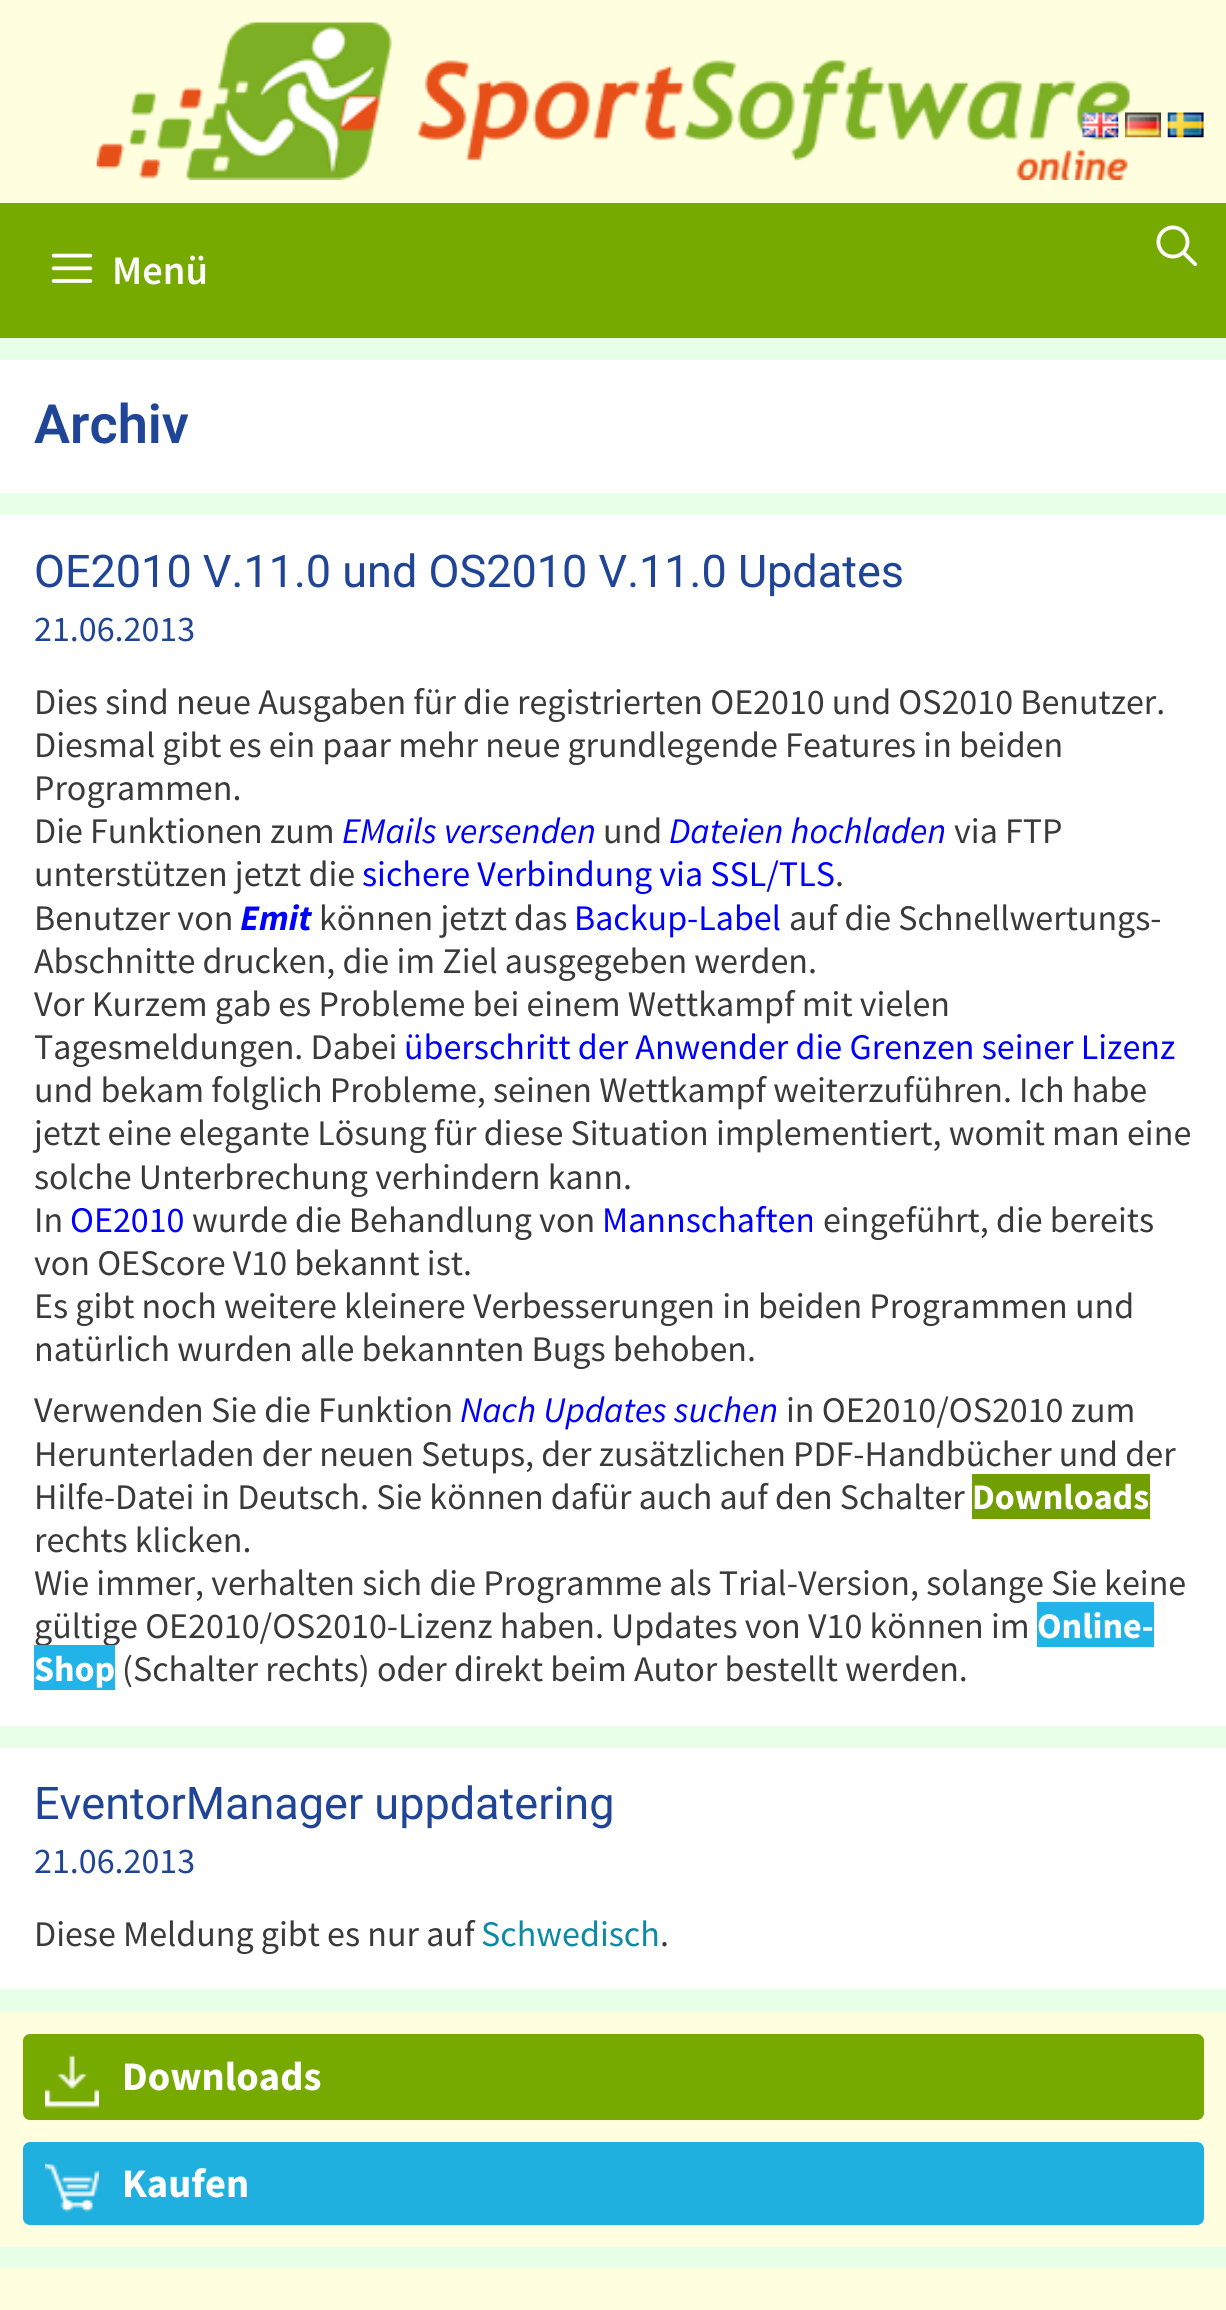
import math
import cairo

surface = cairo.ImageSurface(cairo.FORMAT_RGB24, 1226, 2310)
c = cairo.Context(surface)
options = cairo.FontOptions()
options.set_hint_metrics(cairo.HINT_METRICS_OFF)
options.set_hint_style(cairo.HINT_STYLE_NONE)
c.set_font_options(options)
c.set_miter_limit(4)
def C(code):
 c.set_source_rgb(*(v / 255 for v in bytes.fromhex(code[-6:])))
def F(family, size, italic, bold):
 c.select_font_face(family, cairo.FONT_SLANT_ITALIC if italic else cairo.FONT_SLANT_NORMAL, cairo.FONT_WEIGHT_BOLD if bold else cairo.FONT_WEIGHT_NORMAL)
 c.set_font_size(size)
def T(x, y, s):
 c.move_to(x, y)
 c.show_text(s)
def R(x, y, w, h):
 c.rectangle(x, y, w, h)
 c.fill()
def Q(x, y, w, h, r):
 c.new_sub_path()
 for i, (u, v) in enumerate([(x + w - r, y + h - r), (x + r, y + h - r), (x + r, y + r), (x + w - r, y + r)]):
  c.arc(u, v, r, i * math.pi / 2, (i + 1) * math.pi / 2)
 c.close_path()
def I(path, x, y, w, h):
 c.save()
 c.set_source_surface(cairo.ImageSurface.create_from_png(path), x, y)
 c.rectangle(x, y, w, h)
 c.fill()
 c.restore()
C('e8ffe8')
c.paint()
C('ffffdf')
R(0,0,1226,203)
I('1.png',96,22,1034,158)
I('2.png',1082,112,37,26)
I('3.png',1125,112,36,26)
I('4.png',1167,112,37,26)
C('77aa00')
R(0,203,1226,135)
I('5.png',1156,225,41,41)
I('6.png',51,253,42,30)
F('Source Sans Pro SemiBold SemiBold',40.5,0,0)
C('ffffff')
T(112,284,'Menü')
R(0,360,1226,133)
F('Roboto SemiBold',54,0,0)
C('204596')
T(34,443,'Archiv')
C('ffffff')
R(0,515,1226,1211)
F('Roboto',45,0,0)
C('204596')
T(34,587,'OE2010 V.11.0 und OS2010 V.11.0 Updates')
F('Source Sans Pro',36,0,0)
T(34,641,'21.06.2013')
C('3a3a3a')
T(34,714,'Dies sind neue Ausgaben für die registrierten OE2010 und OS2010 Benutzer.')
T(34,757,'Diesmal gibt es ein paar mehr neue grundlegende Features in beiden')
T(34,800,'Programmen.')
T(34,843,'Die Funktionen zum')
F('Source Sans Pro',36,1,0)
C('0000ff')
T(342,843,'EMails versenden')
F('Source Sans Pro',36,0,0)
C('3a3a3a')
T(603,843,'und')
F('Source Sans Pro',36,1,0)
C('0000ff')
T(669,843,'Dateien hochladen')
F('Source Sans Pro',36,0,0)
C('3a3a3a')
T(954,843,'via FTP')
T(34,886,'unterstützen jetzt die')
C('0000ff')
T(362,886,'sichere Verbindung via SSL/TLS')
C('3a3a3a')
T(835,886,'.')
T(34,930,'Benutzer von')
F('Source Sans Pro',36,1,1)
C('0000ff')
T(240,930,'Emit')
F('Source Sans Pro',36,0,0)
C('3a3a3a')
T(319,930,'können jetzt das')
C('0000ff')
T(574,930,'Backup-Label')
C('3a3a3a')
T(789,930,'auf die Schnellwertungs-')
T(34,973,'Abschnitte drucken, die im Ziel ausgegeben werden.')
T(34,1016,'Vor Kurzem gab es Probleme bei einem Wettkampf mit vielen')
T(34,1059,'Tagesmeldungen. Dabei')
C('0000ff')
T(404,1059,'überschritt der Anwender die Grenzen seiner Lizenz')
C('3a3a3a')
T(34,1102,'und bekam folglich Probleme, seinen Wettkampf weiterzuführen. Ich habe')
T(34,1145,'jetzt eine elegante Lösung für diese Situation implementiert, womit man eine')
T(34,1189,'solche Unterbrechung verhindern kann.')
T(34,1232,'In')
C('0000ff')
T(70,1232,'OE2010')
C('3a3a3a')
T(192,1232,'wurde die Behandlung von')
C('0000ff')
T(602,1232,'Mannschaften')
C('3a3a3a')
T(823,1232,'eingeführt, die bereits')
T(34,1275,'von OEScore V10 bekannt ist.')
T(34,1318,'Es gibt noch weitere kleinere Verbesserungen in beiden Programmen und')
T(34,1361,'natürlich wurden alle bekannten Bugs behoben.')
T(34,1422,'Verwenden Sie die Funktion')
F('Source Sans Pro',36,1,0)
C('0000ff')
T(460,1422,'Nach Updates suchen')
F('Source Sans Pro',36,0,0)
C('3a3a3a')
T(786,1422,'in OE2010/OS2010 zum')
T(34,1466,'Herunterladen der neuen Setups, der zusätzlichen PDF-Handbücher und der')
T(34,1509,'Hilfe-Datei in Deutsch. Sie können dafür auch auf den Schalter')
C('719e00')
R(972,1474,178,45)
F('Source Sans Pro',36,0,1)
C('ffffff')
T(972,1509,'Downloads')
F('Source Sans Pro',36,0,0)
C('3a3a3a')
T(34,1552,'rechts klicken.')
T(34,1595,'Wie immer, verhalten sich die Programme als Trial-Version, solange Sie keine')
T(34,1638,'gültige OE2010/OS2010-Lizenz haben. Updates von V10 können im')
C('22b4e9')
R(1037,1602,117,45)
F('Source Sans Pro',36,0,1)
C('ffffff')
T(1037,1638,'Online-')
C('22b4e9')
R(34,1645,81,45)
C('ffffff')
T(34,1681,'Shop')
F('Source Sans Pro',36,0,0)
C('3a3a3a')
T(122,1681,'(Schalter rechts) oder direkt beim Autor bestellt werden.')
C('ffffff')
R(0,1748,1226,241)
F('Roboto',45,0,0)
C('204596')
T(34,1819,'EventorManager uppdatering')
F('Source Sans Pro',36,0,0)
T(34,1873,'21.06.2013')
C('3a3a3a')
T(34,1946,'Diese Meldung gibt es nur auf')
C('0c8aa3')
T(481,1946,'Schwedisch')
C('3a3a3a')
T(660,1946,'.')
C('ffffdf')
R(0,2012,1226,234)
C('77aa00')
Q(23,2034,1181,86,7)
c.fill()
I('7.png',45,2054,54,55)
F('Source Sans Pro',40.5,0,1)
C('ffffff')
T(122,2090,'Downloads')
C('20b0e0')
Q(23,2142,1181,83,7)
c.fill()
I('8.png',45,2162,54,51)
C('ffffff')
T(122,2197,'Kaufen')
C('ffffdf')
R(0,2268,1226,42)
surface.write_to_png('o.png')
